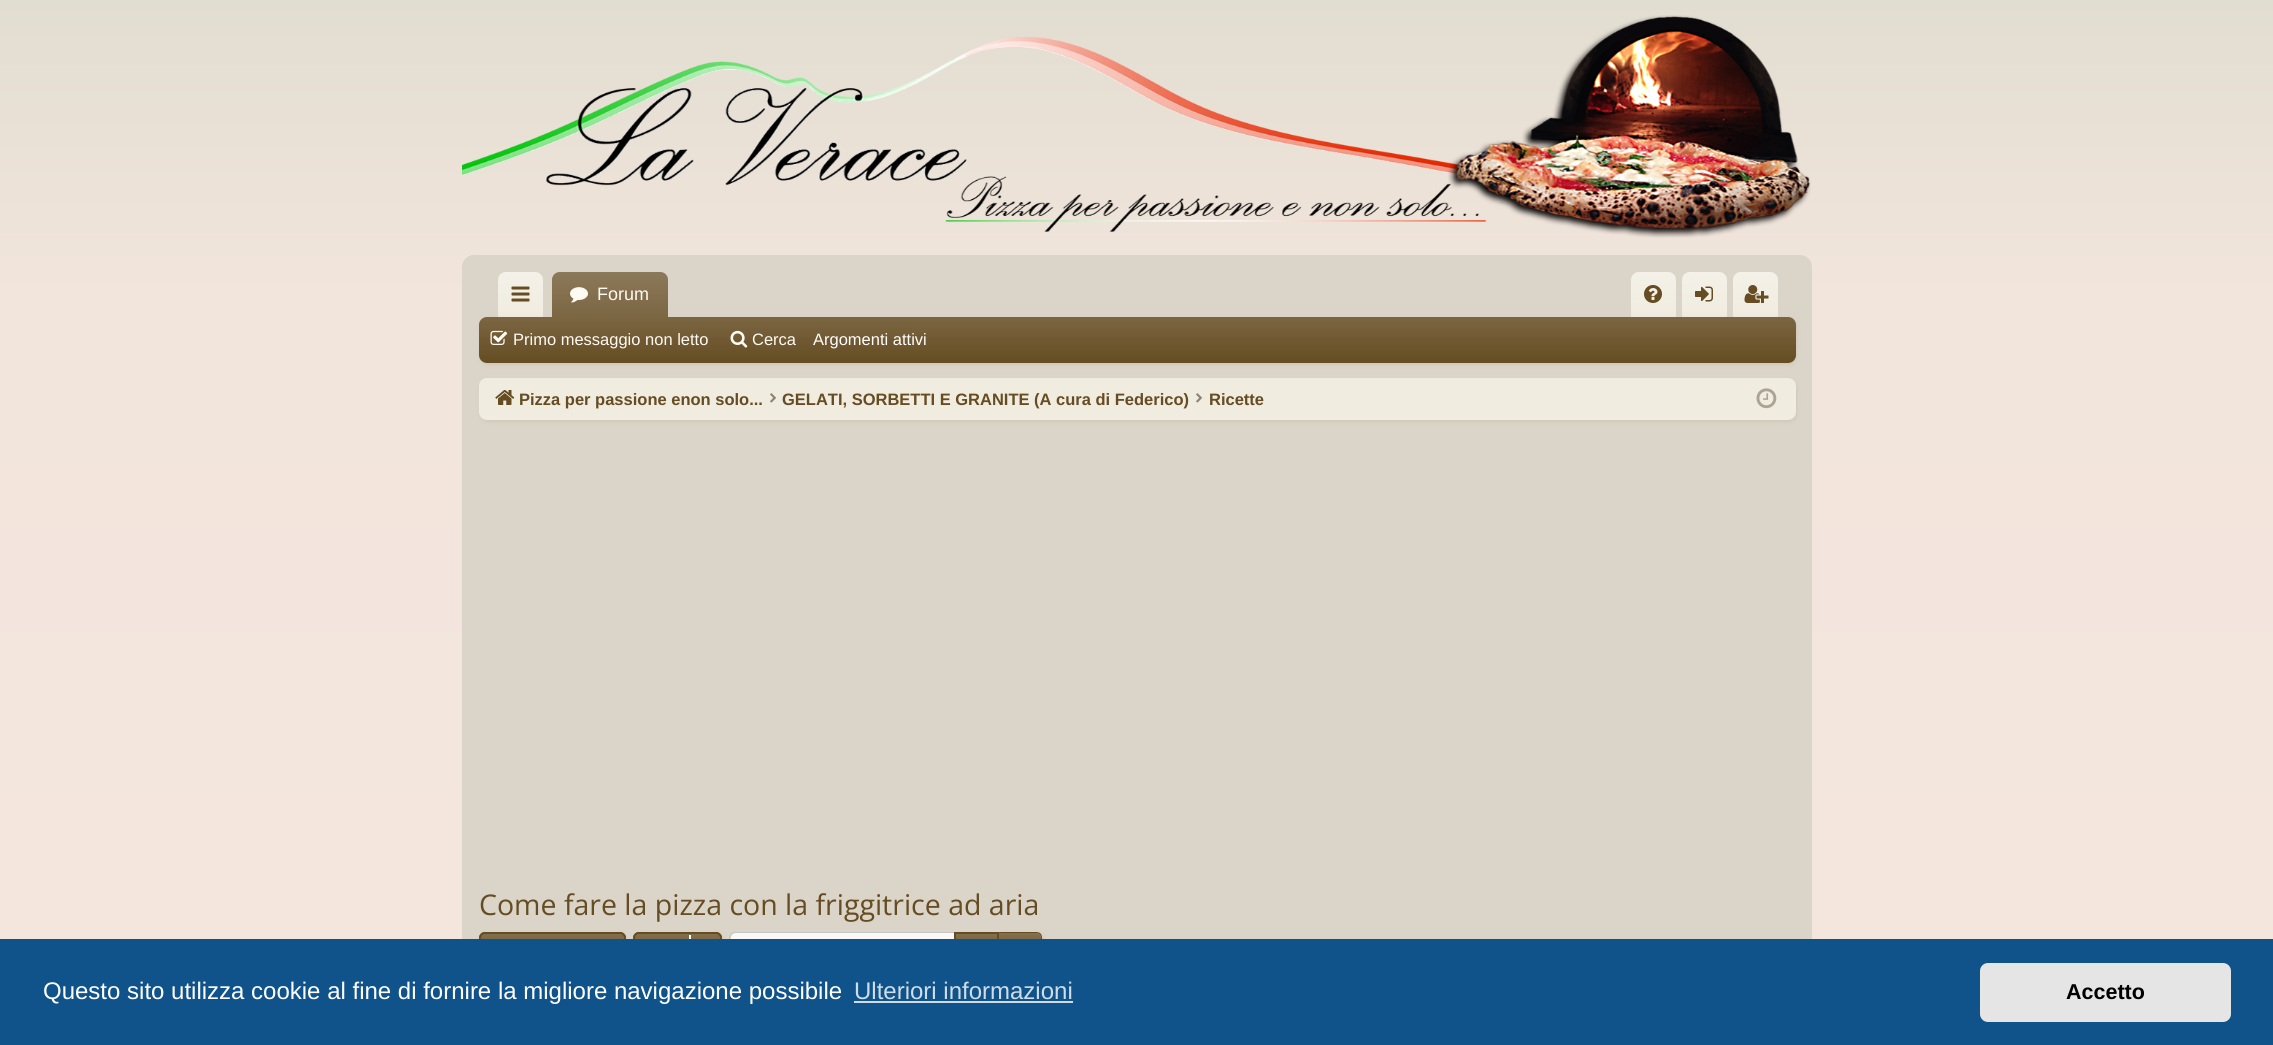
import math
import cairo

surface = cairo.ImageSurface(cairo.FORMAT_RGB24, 2273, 1045)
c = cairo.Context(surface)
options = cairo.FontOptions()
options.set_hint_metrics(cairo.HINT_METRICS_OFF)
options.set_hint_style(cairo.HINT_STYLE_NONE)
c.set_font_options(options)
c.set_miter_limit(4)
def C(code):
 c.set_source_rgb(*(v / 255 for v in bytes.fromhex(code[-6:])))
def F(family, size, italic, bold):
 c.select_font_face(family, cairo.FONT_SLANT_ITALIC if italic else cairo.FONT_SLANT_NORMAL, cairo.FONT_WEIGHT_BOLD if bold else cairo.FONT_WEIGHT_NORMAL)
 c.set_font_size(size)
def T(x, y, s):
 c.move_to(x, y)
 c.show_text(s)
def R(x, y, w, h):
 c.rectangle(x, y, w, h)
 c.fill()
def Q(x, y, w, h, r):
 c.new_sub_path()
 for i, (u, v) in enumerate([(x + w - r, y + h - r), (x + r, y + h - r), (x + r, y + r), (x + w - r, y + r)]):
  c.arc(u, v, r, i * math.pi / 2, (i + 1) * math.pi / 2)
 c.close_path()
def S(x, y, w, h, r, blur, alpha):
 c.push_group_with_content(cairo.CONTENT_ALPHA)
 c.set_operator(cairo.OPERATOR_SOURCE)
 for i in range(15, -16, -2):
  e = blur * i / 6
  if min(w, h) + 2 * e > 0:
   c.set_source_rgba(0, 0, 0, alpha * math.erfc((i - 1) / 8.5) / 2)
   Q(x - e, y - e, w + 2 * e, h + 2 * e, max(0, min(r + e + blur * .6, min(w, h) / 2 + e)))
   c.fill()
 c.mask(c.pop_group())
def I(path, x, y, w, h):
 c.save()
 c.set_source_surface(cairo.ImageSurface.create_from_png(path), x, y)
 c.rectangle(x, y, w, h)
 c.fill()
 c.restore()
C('ffffff')
c.paint()
gradient = cairo.LinearGradient(1137,0,1137,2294)
gradient.add_color_stop_rgba(0,0.886,0.867,0.82,1)
gradient.add_color_stop_rgba(.13,0.949,0.898,0.863,1)
gradient.add_color_stop_rgba(1,0.973,0.91,0.878,1)
c.set_source(gradient)
R(0,0,2273,939)
I('1.png',462,15,1349,223)
C('dbd5c9')
Q(463,256,1348,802,11)
c.fill_preserve()
c.stroke()
C('f0ece0')
c.new_path()
c.move_to(506,272)
c.line_to(535,272)
c.curve_to(539.5,272,543,275.5,543,280)
c.line_to(543,317)
c.line_to(498,317)
c.line_to(498,280)
c.curve_to(498,275.5,501.5,272,506,272)
c.close_path()
c.fill()
gradient = cairo.LinearGradient(521,272,521,317)
gradient.add_color_stop_rgba(0,1,1,1,.25)
gradient.add_color_stop_rgba(1,1,1,1,0)
c.set_source(gradient)
c.new_path()
c.move_to(506,272)
c.line_to(535,272)
c.curve_to(539.5,272,543,275.5,543,280)
c.line_to(543,317)
c.line_to(498,317)
c.line_to(498,280)
c.curve_to(498,275.5,501.5,272,506,272)
c.close_path()
c.fill()
I('2.png',511,286,19,16)
C('654c22')
c.new_path()
c.move_to(560,272)
c.line_to(660,272)
c.curve_to(664.5,272,668,275.5,668,280)
c.line_to(668,317)
c.line_to(552,317)
c.line_to(552,280)
c.curve_to(552,275.5,555.5,272,560,272)
c.close_path()
c.fill()
gradient = cairo.LinearGradient(610,272,610,317)
gradient.add_color_stop_rgba(0,1,1,1,.25)
gradient.add_color_stop_rgba(1,1,1,1,.15)
c.set_source(gradient)
c.new_path()
c.move_to(560,272)
c.line_to(660,272)
c.curve_to(664.5,272,668,275.5,668,280)
c.line_to(668,317)
c.line_to(552,317)
c.line_to(552,280)
c.curve_to(552,275.5,555.5,272,560,272)
c.close_path()
c.fill()
I('3.png',570,287,18,16)
F('Liberation Sans',18,0,0)
C('fefbf5')
T(597,300,'Forum')
C('f0ece0')
c.new_path()
c.move_to(1639,272)
c.line_to(1668,272)
c.curve_to(1672.5,272,1676,275.5,1676,280)
c.line_to(1676,317)
c.line_to(1631,317)
c.line_to(1631,280)
c.curve_to(1631,275.5,1634.5,272,1639,272)
c.close_path()
c.fill()
gradient = cairo.LinearGradient(1653,272,1653,317)
gradient.add_color_stop_rgba(0,1,1,1,.25)
gradient.add_color_stop_rgba(1,1,1,1,0)
c.set_source(gradient)
c.new_path()
c.move_to(1639,272)
c.line_to(1668,272)
c.curve_to(1672.5,272,1676,275.5,1676,280)
c.line_to(1676,317)
c.line_to(1631,317)
c.line_to(1631,280)
c.curve_to(1631,275.5,1634.5,272,1639,272)
c.close_path()
c.fill()
C('f0ece0')
c.new_path()
c.move_to(1690,272)
c.line_to(1719,272)
c.curve_to(1723.5,272,1727,275.5,1727,280)
c.line_to(1727,317)
c.line_to(1682,317)
c.line_to(1682,280)
c.curve_to(1682,275.5,1685.5,272,1690,272)
c.close_path()
c.fill()
gradient = cairo.LinearGradient(1704,272,1704,317)
gradient.add_color_stop_rgba(0,1,1,1,.25)
gradient.add_color_stop_rgba(1,1,1,1,0)
c.set_source(gradient)
c.new_path()
c.move_to(1690,272)
c.line_to(1719,272)
c.curve_to(1723.5,272,1727,275.5,1727,280)
c.line_to(1727,317)
c.line_to(1682,317)
c.line_to(1682,280)
c.curve_to(1682,275.5,1685.5,272,1690,272)
c.close_path()
c.fill()
C('f0ece0')
c.new_path()
c.move_to(1741,272)
c.line_to(1770,272)
c.curve_to(1774.5,272,1778,275.5,1778,280)
c.line_to(1778,317)
c.line_to(1733,317)
c.line_to(1733,280)
c.curve_to(1733,275.5,1736.5,272,1741,272)
c.close_path()
c.fill()
gradient = cairo.LinearGradient(1755,272,1755,317)
gradient.add_color_stop_rgba(0,1,1,1,.25)
gradient.add_color_stop_rgba(1,1,1,1,0)
c.set_source(gradient)
c.new_path()
c.move_to(1741,272)
c.line_to(1770,272)
c.curve_to(1774.5,272,1778,275.5,1778,280)
c.line_to(1778,317)
c.line_to(1733,317)
c.line_to(1733,280)
c.curve_to(1733,275.5,1736.5,272,1741,272)
c.close_path()
c.fill()
C('654c22')
S(480,318,1317,47,8,2,.1)
C('654c22')
Q(479,317,1317,46,8)
c.fill()
gradient = cairo.LinearGradient(1137,316,1137,363)
gradient.add_color_stop_rgba(0,1,1,1,.15)
gradient.add_color_stop_rgba(1,1,1,1,0)
c.set_source(gradient)
Q(479,317,1317,46,8)
c.fill()
C('654c22')
c.new_path()
c.move_to(555,315)
c.line_to(665,315)
c.curve_to(666.5,315,668,316.5,668,318)
c.line_to(552,318)
c.curve_to(552,316.5,553.5,315,555,315)
c.close_path()
c.fill()
c.set_source_rgba(1,1,1,0.15)
c.new_path()
c.move_to(555,315)
c.line_to(665,315)
c.curve_to(666.5,315,668,316.5,668,318)
c.line_to(552,318)
c.curve_to(552,316.5,553.5,315,555,315)
c.close_path()
c.fill()
I('4.png',1644,285,18,18)
I('5.png',1695,286,18,16)
I('6.png',1744,285,25,18)
I('7.png',490,330,18,15)
F('Liberation Sans',16.5,0,0)
C('fefbf5')
T(513,345,'Primo messaggio non letto')
I('8.png',730,330,18,18)
T(752,345,'Cerca')
C('ffffff')
T(813,345,'Argomenti attivi')
C('654c22')
S(480,380,1317,42,8,2,.1)
C('f0ece0')
Q(479,378,1317,42,8)
c.fill()
I('9.png',495,390,20,15)
F('Liberation Sans',16.5,0,1)
C('654c22')
T(519,405,'Pizza per passione enon solo...')
I('10.png',770,393,6,10)
T(782,405,'GELATI, SORBETTI E GRANITE (A cura di Federico)')
I('10.png',1196,393,6,10)
T(1209,405,'Ricette')
I('11.png',1756,388,21,21)
F('Open Sans',28.5,0,0)
T(479,915,'Come fare la pizza con la friggitrice ad aria')
C('654c22')
S(480,933,147,36,6,2,.1)
C('654c22')
Q(479,932,147,36,6)
c.fill()
c.save()
Q(479,932,147,36,6)
c.clip()
gradient = cairo.LinearGradient(552,933,552,966)
gradient.add_color_stop_rgba(0,1,1,1,.2)
gradient.add_color_stop_rgba(1,1,1,1,0)
c.set_source(gradient)
R(479,933,147,6)
c.restore()
Q(480,933,145,34,5)
c.stroke()
C('fbf9f6')
c.new_path()
c.move_to(736,933)
c.line_to(954,933)
c.line_to(954,966)
c.line_to(736,966)
c.curve_to(733,966,731,964,731,961)
c.line_to(731,938)
c.curve_to(731,935,733,933,736,933)
c.close_path()
c.fill()
C('c6c6c6')
c.set_fill_rule(cairo.FILL_RULE_EVEN_ODD)
c.new_path()
c.move_to(735,932)
c.line_to(954,932)
c.line_to(954,968)
c.line_to(735,968)
c.curve_to(732,968,729,965,729,962)
c.line_to(729,938)
c.curve_to(729,934,732,932,735,932)
c.close_path()
c.move_to(735,933)
c.line_to(954,933)
c.line_to(954,966)
c.line_to(735,966)
c.curve_to(733,966,730,964,730,962)
c.line_to(730,938)
c.curve_to(730,935,733,933,735,933)
c.close_path()
c.fill()
C('654c22')
S(635,933,88,36,6,2,.1)
C('654c22')
Q(633,932,89,36,6)
c.fill()
c.save()
c.set_fill_rule(cairo.FILL_RULE_WINDING)
Q(633,932,89,36,6)
c.clip()
gradient = cairo.LinearGradient(677,933,677,966)
gradient.add_color_stop_rgba(0,1,1,1,.2)
gradient.add_color_stop_rgba(1,1,1,1,0)
c.set_source(gradient)
R(633,933,89,6)
c.restore()
Q(634,933,87,34,5)
c.stroke()
C('fefbf5')
R(689,935,2,4)
gradient = cairo.LinearGradient(977,933,977,966)
gradient.add_color_stop_rgba(0,0.518,0.439,0.306,1)
gradient.add_color_stop_rgba(1,0.396,0.298,0.133,1)
c.set_source(gradient)
R(956,934,41,5)
c.rectangle(955,933,43,34)
C('654c22')
c.stroke()
C('654c22')
S(1001,933,43,36,6,2,.1)
C('654c22')
c.new_path()
c.move_to(999,933)
c.line_to(1036,933)
c.curve_to(1039,933,1041,935,1041,938)
c.line_to(1041,961)
c.curve_to(1041,964,1039,966,1036,966)
c.line_to(999,966)
c.close_path()
c.fill()
gradient = cairo.LinearGradient(1020,933,1020,966)
gradient.add_color_stop_rgba(0,1,1,1,.2)
gradient.add_color_stop_rgba(1,1,1,1,0)
c.set_source(gradient)
c.new_path()
c.move_to(999,933)
c.line_to(1036,933)
c.curve_to(1039,933,1041,935,1041,938)
c.line_to(1041,961)
c.curve_to(1041,964,1039,966,1036,966)
c.line_to(999,966)
c.close_path()
c.fill()
C('654c22')
c.new_path()
c.move_to(999,932)
c.line_to(1036,932)
c.curve_to(1040,932,1042,934,1042,938)
c.line_to(1042,962)
c.curve_to(1042,965,1040,968,1036,968)
c.line_to(999,968)
c.close_path()
c.move_to(999,933)
c.line_to(1036,933)
c.curve_to(1039,933,1041,935,1041,938)
c.line_to(1041,962)
c.curve_to(1041,964,1039,966,1036,966)
c.line_to(999,966)
c.close_path()
c.fill()
C('0f538a')
R(0,939,2273,106)
F('Liberation Sans',24,0,0)
C('ffffff')
T(43,999,'Questo sito utilizza cookie al fine di fornire la migliore navigazione possibile')
C('cfdde8')
T(854,999,'Ulteriori informazioni')
R(854,1001,219,2)
C('e5e5e5')
Q(1980,963,251,59,8)
c.fill()
F('Liberation Sans',21.5,0,1)
C('000000')
T(2066,999,'Accetto')
surface.write_to_png('o.png')
